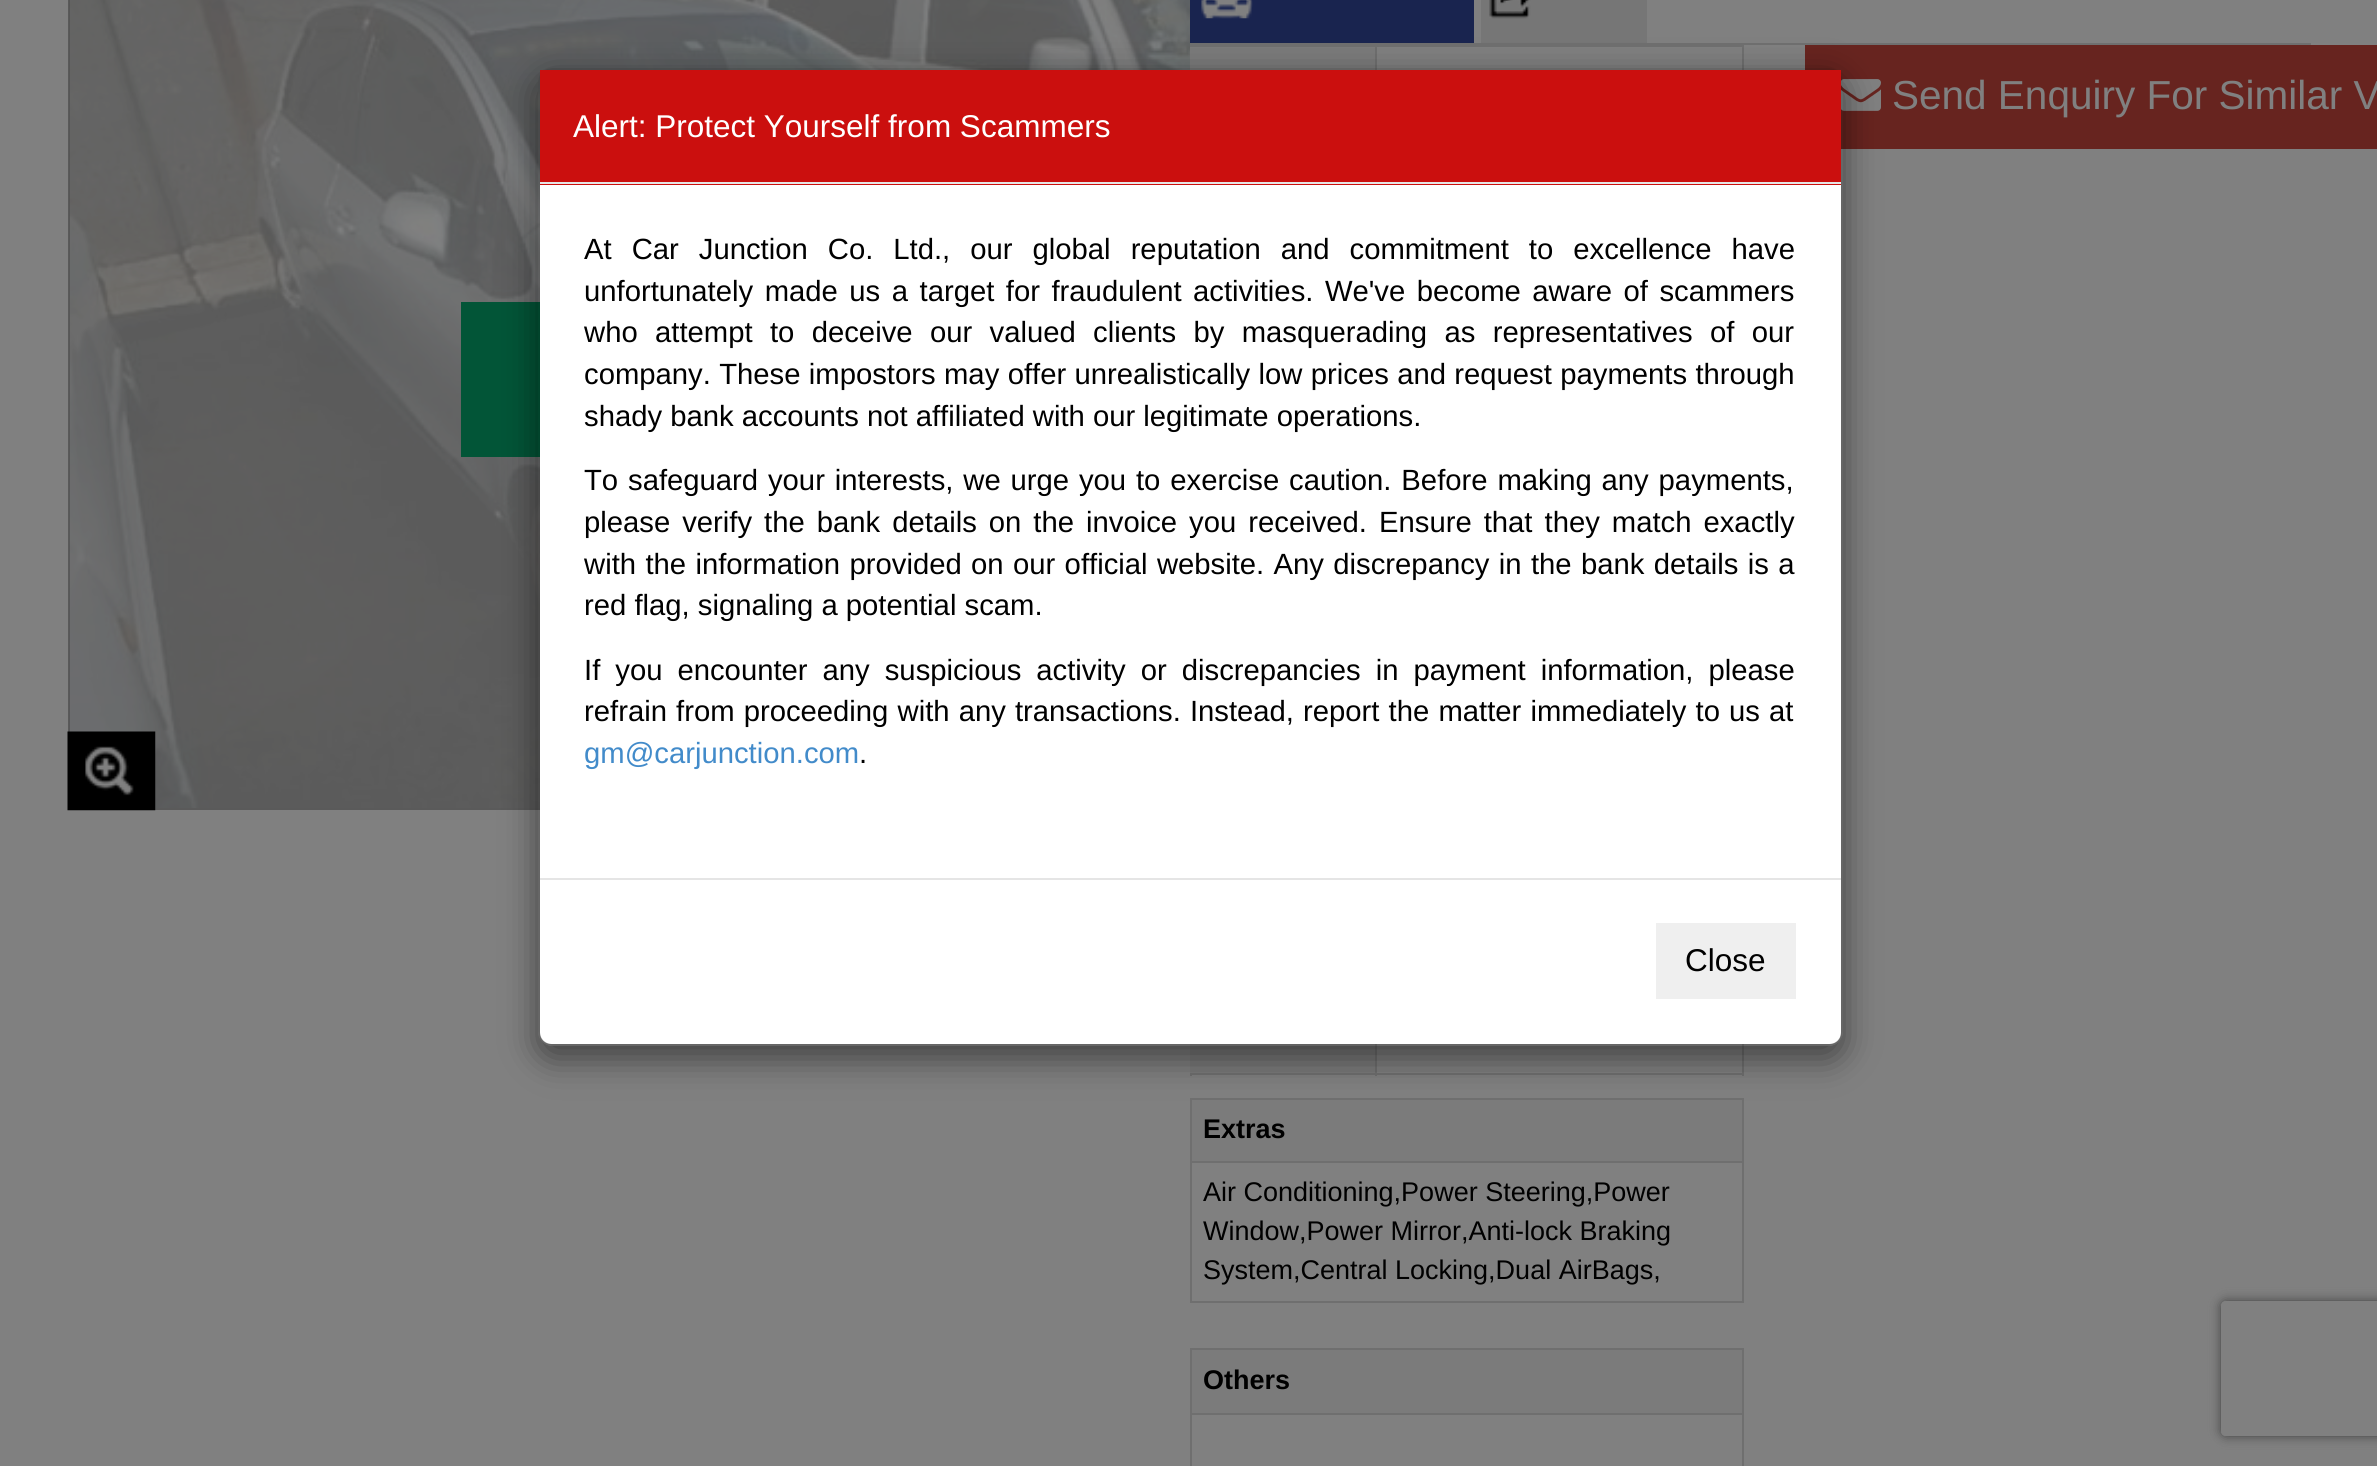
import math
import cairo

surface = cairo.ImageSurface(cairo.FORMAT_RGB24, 2377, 1466)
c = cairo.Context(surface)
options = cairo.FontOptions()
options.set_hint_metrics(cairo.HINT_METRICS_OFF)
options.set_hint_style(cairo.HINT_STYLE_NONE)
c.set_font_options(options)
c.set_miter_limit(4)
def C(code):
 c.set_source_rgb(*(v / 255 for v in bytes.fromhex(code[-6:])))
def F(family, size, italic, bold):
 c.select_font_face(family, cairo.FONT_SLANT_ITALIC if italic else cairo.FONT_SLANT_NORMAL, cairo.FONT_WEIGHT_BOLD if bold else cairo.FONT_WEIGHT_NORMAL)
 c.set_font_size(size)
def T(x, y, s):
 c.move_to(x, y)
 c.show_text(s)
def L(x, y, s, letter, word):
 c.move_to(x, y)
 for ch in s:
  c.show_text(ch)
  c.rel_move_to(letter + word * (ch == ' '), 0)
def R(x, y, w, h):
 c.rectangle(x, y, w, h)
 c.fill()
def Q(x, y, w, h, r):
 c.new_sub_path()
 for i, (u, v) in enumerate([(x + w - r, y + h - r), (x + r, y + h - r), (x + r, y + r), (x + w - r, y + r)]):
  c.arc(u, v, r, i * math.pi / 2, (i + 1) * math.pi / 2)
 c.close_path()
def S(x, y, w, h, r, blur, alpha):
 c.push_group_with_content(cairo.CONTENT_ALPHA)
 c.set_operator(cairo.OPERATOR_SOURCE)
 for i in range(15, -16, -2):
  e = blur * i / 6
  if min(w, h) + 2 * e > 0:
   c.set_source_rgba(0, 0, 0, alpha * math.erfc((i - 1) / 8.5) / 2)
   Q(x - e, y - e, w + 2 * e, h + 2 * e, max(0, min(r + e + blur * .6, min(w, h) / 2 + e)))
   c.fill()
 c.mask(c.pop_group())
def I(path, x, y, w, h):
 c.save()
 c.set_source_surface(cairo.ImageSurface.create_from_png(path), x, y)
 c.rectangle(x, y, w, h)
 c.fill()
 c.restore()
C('808080')
c.paint()
c.rectangle(69,-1,1280,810)
C('5a5a5a')
c.stroke()
I('1.png',69,0,1121,808)
C('025537')
R(461,302,79,155)
I('2.png',67,731,89,80)
C('6f6f6f')
R(1190,43,1121,2)
C('19244f')
R(1190,0,284,43)
I('3.png',1201,0,52,19)
C('767676')
R(1481,0,166,43)
I('4.png',1489,0,42,19)
C('67241f')
R(1805,45,572,104)
I('5.png',1841,79,40,32)
F('Liberation Sans',40.5,0,0)
C('808080')
T(1892,109,'Send Enquiry For Similar V')
C('6f6f6f')
R(1190,45,554,2)
R(1742,45,2,1031)
R(1190,1073,554,2)
R(1190,45,2,1031)
C('7b7b7b')
R(1190,47,185,23)
C('6f6f6f')
R(1375,45,2,25)
C('7b7b7b')
R(1190,1044,185,29)
C('6f6f6f')
R(1375,1044,2,32)
R(1190,1098,554,2)
R(1742,1098,2,205)
R(1190,1301,554,2)
R(1190,1098,2,205)
C('7b7b7b')
R(1192,1100,550,61)
F('Liberation Sans',27,0,1)
C('000000')
T(1203,1138,'Extras')
C('6f6f6f')
R(1190,1161,554,2)
F('Liberation Sans',27,0,0)
C('000000')
T(1203,1201,'Air Conditioning,Power Steering,Power')
T(1203,1240,'Window,Power Mirror,Anti-lock Braking')
T(1203,1279,'System,Central Locking,Dual AirBags,')
C('6f6f6f')
R(1190,1348,554,2)
R(1742,1348,2,118)
R(1190,1348,2,118)
C('7b7b7b')
R(1192,1350,550,63)
F('Liberation Sans',27,0,1)
C('000000')
T(1203,1389,'Others')
C('6f6f6f')
R(1190,1413,554,2)
c.save()
c.set_fill_rule(cairo.FILL_RULE_EVEN_ODD)
c.new_path()
c.move_to(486,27)
c.line_to(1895,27)
c.line_to(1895,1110)
c.line_to(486,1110)
c.close_path()
c.move_to(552,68)
c.line_to(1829,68)
c.curve_to(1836.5,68,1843,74.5,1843,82)
c.line_to(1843,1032)
c.curve_to(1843,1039.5,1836.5,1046,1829,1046)
c.line_to(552,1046)
c.curve_to(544.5,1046,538,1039.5,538,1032)
c.line_to(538,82)
c.curve_to(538,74.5,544.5,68,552,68)
c.close_path()
c.clip()
C('000000')
S(538,79,1305,979,14,17,.5)
c.restore()
C('ffffff')
Q(540,70,1301,974,11)
c.fill()
Q(539,69,1303,976,13)
c.set_source_rgba(0,0,0,0.2)
c.stroke()
C('cb0f0e')
R(540,70,1301,115)
C('e5e5e5')
R(540,182,1301,2)
F('Liberation Sans',31.5,0,0)
C('ffffff')
T(573,137,'Alert: Protect Yourself from Scammers')
F('Liberation Sans',29.25,0,0)
C('000000')
L(584,259,'At Car Junction Co. Ltd., our global reputation and commitment to excellence have',0,11.9)
L(584,301,'unfortunately made us a target for fraudulent activities. We\'ve become aware of scammers',0,3.4)
L(584,342,'who attempt to deceive our valued clients by masquerading as representatives of our',0,9.25)
L(584,384,'company. These impostors may offer unrealistically low prices and request payments through',0,.25)
T(584,426,'shady bank accounts not affiliated with our legitimate operations.')
L(584,490,'To safeguard your interests, we urge you to exercise caution. Before making any payments,',0,1.75)
L(584,532,'please verify the bank details on the invoice you received. Ensure that they match exactly',0,3.9)
L(584,574,'with the information provided on our official website. Any discrepancy in the bank details is a',0,1.25)
T(584,615,'red flag, signaling a potential scam.')
L(584,680,'If you encounter any suspicious activity or discrepancies in payment information, please',0,6.9)
L(584,721,'refrain from proceeding with any transactions. Instead, report the matter immediately to us at',0,1)
C('428bca')
T(584,763,'gm@carjunction.com')
C('000000')
T(859,763,'.')
C('e5e5e5')
R(540,878,1301,2)
C('efefef')
R(1656,923,140,76)
F('Liberation Sans',31.5,0,0)
C('000000')
T(1685,971,'Close')
c.save()
c.set_fill_rule(cairo.FILL_RULE_EVEN_ODD)
c.new_path()
c.move_to(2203,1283)
c.line_to(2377,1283)
c.line_to(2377,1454)
c.line_to(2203,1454)
c.close_path()
c.move_to(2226,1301)
c.line_to(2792,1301)
c.curve_to(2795,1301,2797,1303,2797,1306)
c.line_to(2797,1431)
c.curve_to(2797,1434,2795,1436,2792,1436)
c.line_to(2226,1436)
c.curve_to(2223,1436,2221,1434,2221,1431)
c.line_to(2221,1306)
c.curve_to(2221,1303,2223,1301,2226,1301)
c.close_path()
c.clip()
C('404040')
S(2221,1301,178,135,5,5.5,1)
c.restore()
surface.write_to_png('o.png')
